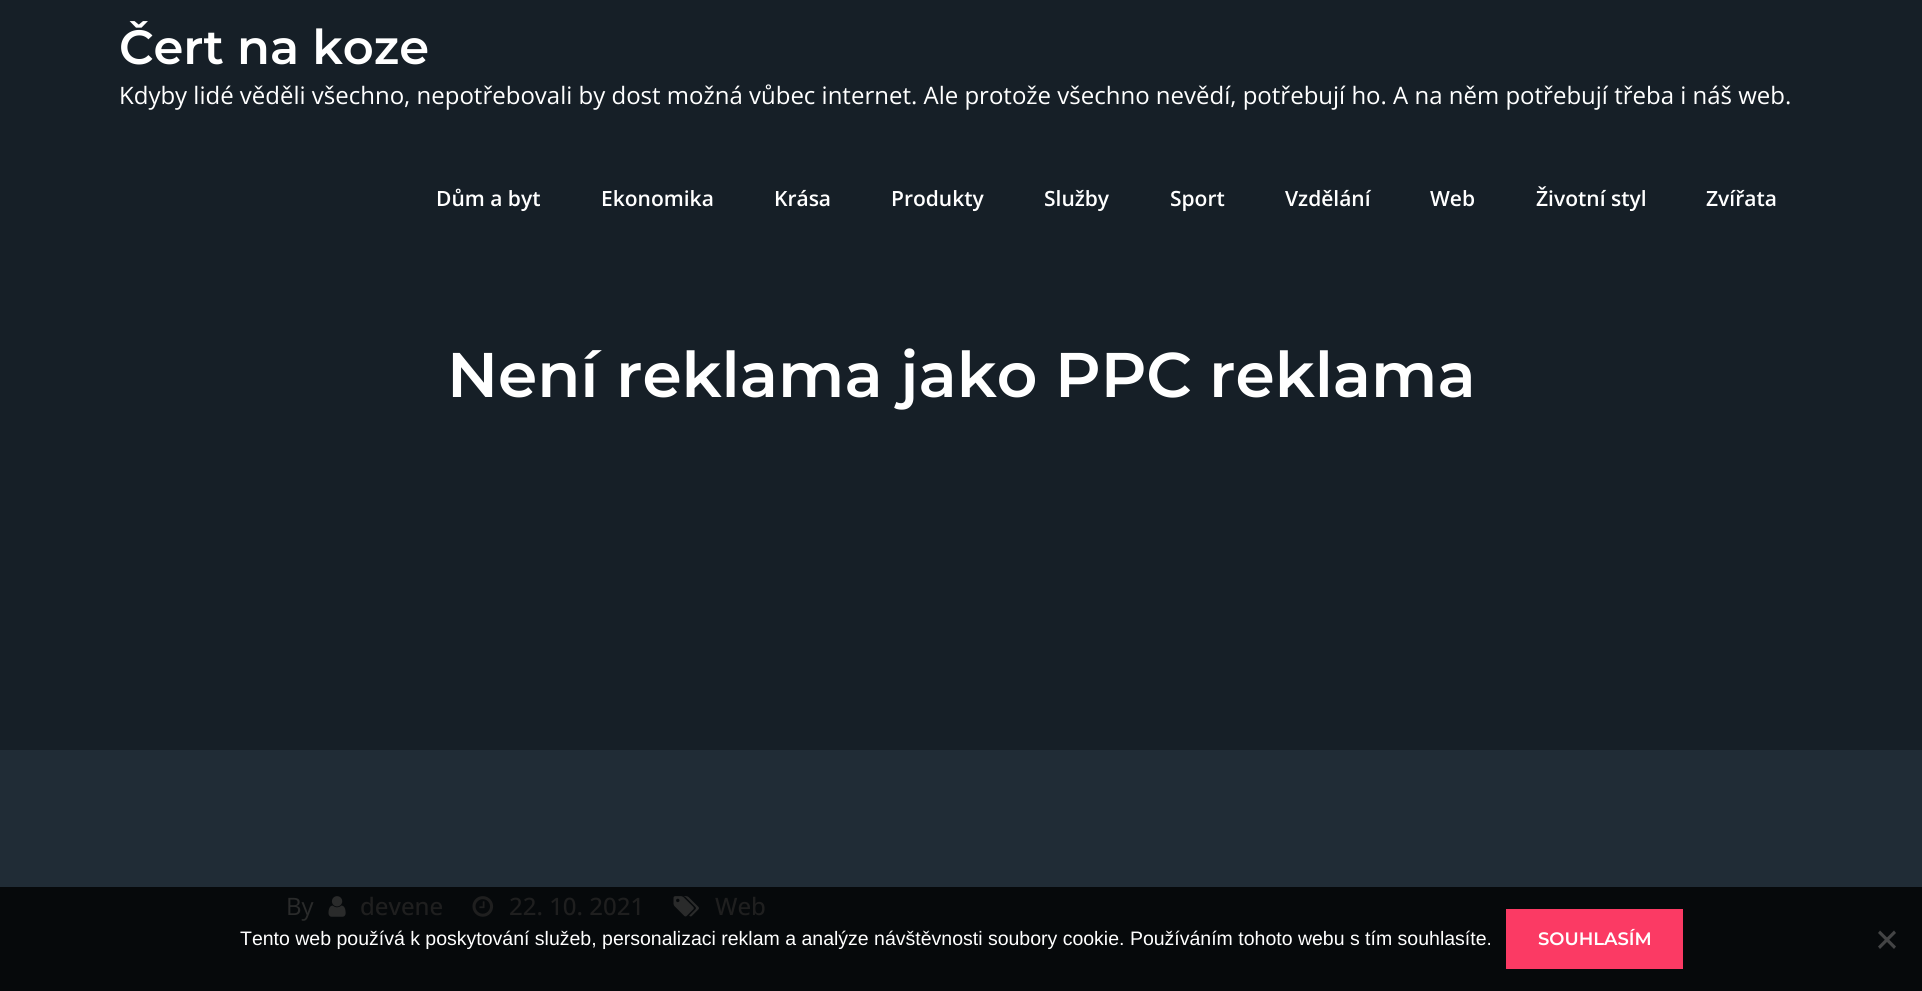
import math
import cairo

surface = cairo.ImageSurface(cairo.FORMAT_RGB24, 1922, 991)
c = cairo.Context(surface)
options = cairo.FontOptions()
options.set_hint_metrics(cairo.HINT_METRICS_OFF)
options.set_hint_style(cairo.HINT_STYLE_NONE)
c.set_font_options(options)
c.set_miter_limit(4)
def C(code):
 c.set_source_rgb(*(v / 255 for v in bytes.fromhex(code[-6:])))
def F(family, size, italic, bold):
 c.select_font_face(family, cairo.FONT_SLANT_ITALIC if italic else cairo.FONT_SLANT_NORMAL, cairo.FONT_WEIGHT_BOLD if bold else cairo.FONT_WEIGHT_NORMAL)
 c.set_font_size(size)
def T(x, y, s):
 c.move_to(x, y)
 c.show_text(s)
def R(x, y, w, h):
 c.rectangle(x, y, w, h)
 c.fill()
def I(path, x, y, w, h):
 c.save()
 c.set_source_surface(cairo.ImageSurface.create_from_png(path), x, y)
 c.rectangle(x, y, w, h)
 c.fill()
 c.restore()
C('202c36')
c.paint()
C('06090b')
R(0,887,1922,104)
C('161f27')
R(0,0,1922,750)
F('Montserrat SemiBold',48,0,0)
C('ffffff')
T(119,64,'Čert na koze')
F('Open Sans',24,0,0)
T(119,104,'Kdyby lidé věděli všechno, nepotřebovali by dost možná vůbec internet. Ale protože všechno nevědí, potřebují ho. A na něm potřebují třeba i náš web.')
F('Open Sans SemiBold',21,0,0)
T(436,206,'Dům a byt')
T(601,206,'Ekonomika')
T(774,206,'Krása')
T(891,206,'Produkty')
T(1044,206,'Služby')
T(1170,206,'Sport')
T(1285,206,'Vzdělání')
T(1430,206,'Web')
T(1536,206,'Životní styl')
T(1706,206,'Zvířata')
F('Montserrat SemiBold',63,0,0)
T(447,397,'Není reklama jako PPC reklama')
F('Open Sans',24,0,0)
C('2a2b2b')
T(286,915,'By')
I('1.png',328,896,18,21)
F('Open Sans Medium',24,0,0)
C('1f1f1f')
T(360,915,'devene')
I('2.png',472,896,22,21)
T(509,915,'22. 10. 2021')
I('3.png',673,896,26,21)
T(715,915,'Web')
F('Liberation Sans',19.5,0,0)
C('ffffff')
T(240,945,'Tento web používá k poskytování služeb, personalizaci reklam a analýze návštěvnosti soubory cookie. Používáním tohoto webu s tím souhlasíte.')
C('fb3a64')
R(1506,909,177,60)
F('Montserrat SemiBold',18,0,0)
C('ffffff')
T(1538,945,'SOUHLASÍM')
C('434445')
c.new_path()
c.move_to(1894,930.5)
c.line_to(1896,933)
c.line_to(1880,949)
c.line_to(1878,946.5)
c.close_path()
c.fill()
c.new_path()
c.move_to(1878,933)
c.line_to(1880,930.5)
c.line_to(1896,946.5)
c.line_to(1894,949)
c.close_path()
c.fill()
surface.write_to_png('o.png')
